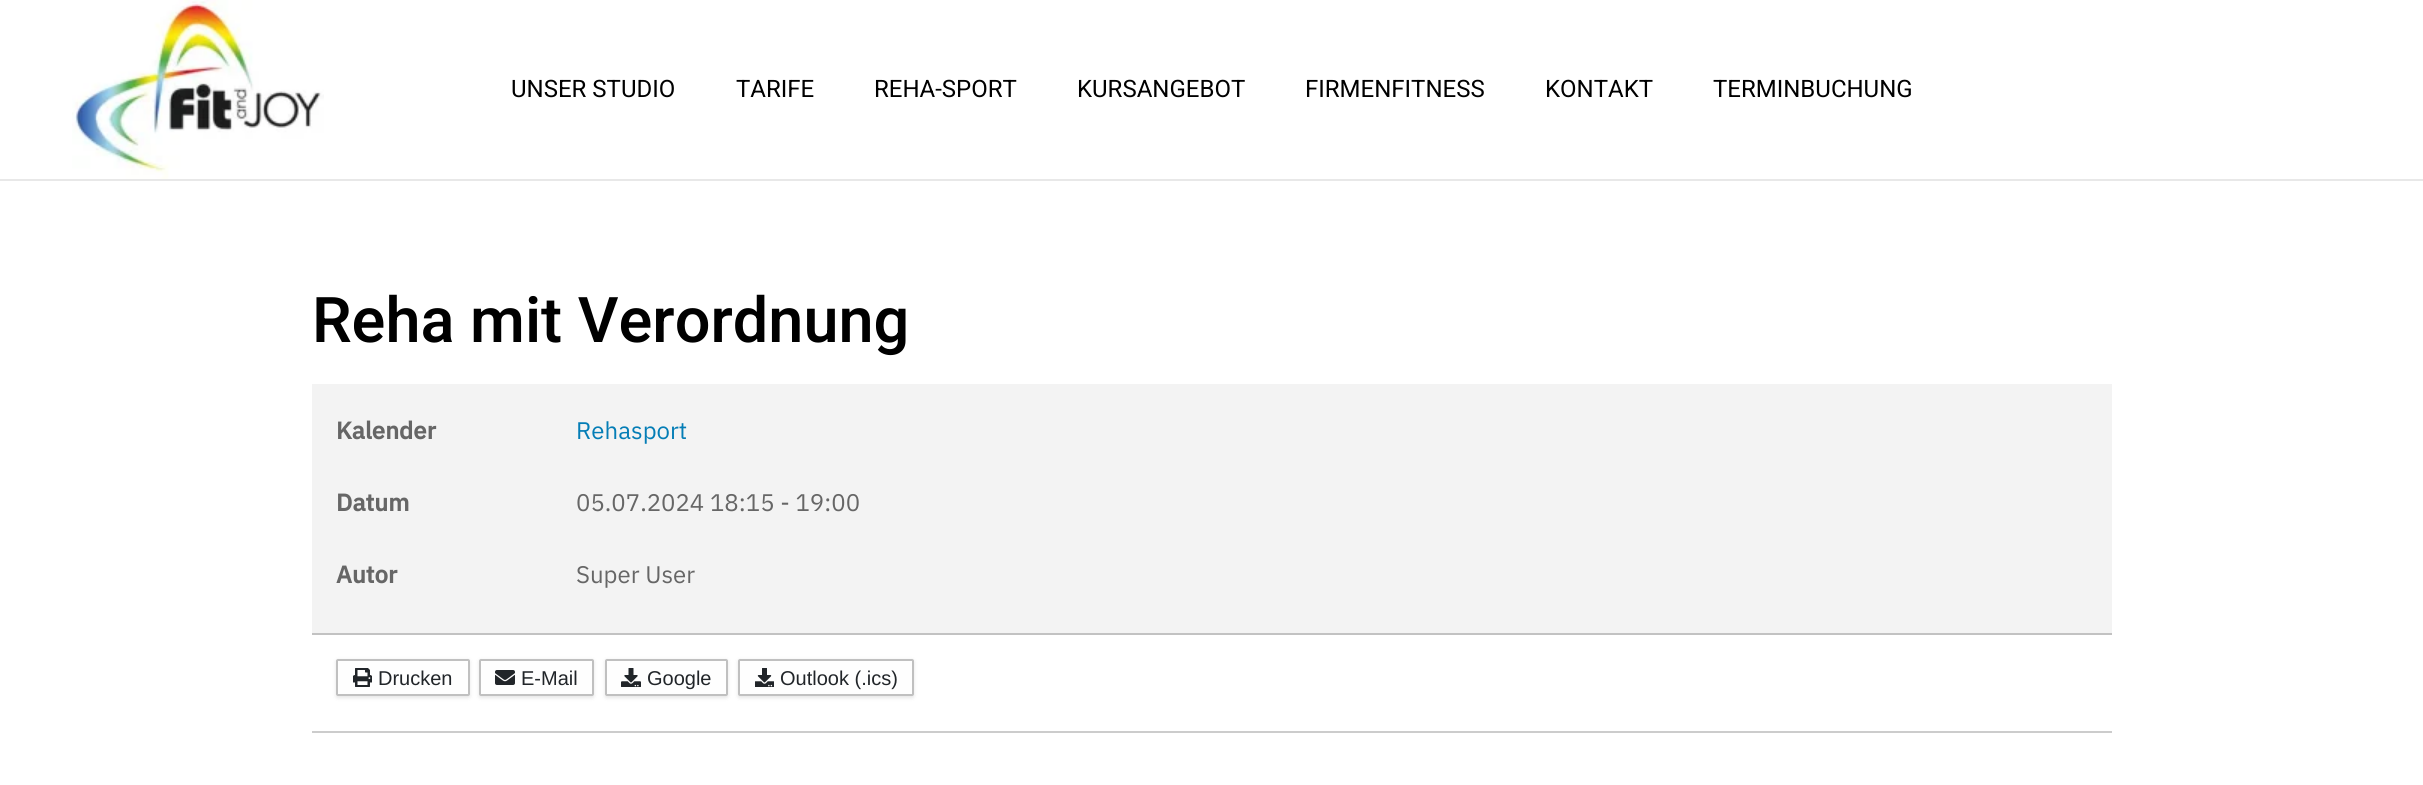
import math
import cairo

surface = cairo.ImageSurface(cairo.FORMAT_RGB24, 2423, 785)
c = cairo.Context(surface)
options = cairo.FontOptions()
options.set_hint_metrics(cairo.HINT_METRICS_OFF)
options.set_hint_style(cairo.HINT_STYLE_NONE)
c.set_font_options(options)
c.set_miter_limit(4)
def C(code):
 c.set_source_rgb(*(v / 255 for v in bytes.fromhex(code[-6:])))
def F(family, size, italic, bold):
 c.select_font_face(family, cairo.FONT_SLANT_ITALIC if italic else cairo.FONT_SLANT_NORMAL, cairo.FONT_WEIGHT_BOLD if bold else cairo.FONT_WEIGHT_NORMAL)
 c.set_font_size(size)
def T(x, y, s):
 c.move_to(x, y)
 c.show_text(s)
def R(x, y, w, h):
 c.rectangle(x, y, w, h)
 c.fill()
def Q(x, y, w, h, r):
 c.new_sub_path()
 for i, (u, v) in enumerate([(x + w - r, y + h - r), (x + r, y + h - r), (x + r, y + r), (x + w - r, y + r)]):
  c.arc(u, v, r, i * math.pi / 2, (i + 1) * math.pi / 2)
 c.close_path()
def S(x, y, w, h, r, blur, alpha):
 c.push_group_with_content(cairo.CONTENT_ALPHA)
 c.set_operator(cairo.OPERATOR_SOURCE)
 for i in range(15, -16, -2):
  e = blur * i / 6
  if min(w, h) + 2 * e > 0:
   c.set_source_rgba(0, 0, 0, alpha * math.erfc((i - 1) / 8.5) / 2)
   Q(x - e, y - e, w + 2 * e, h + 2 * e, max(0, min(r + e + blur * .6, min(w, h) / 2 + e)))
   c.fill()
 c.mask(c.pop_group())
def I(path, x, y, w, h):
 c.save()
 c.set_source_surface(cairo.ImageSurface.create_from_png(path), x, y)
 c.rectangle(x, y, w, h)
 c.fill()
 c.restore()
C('ffffff')
c.paint()
C('e8e8e8')
R(0,179,2423,2)
I('1.png',72,0,252,179)
F('Heebo',24,0,0)
C('000000')
T(511,97,'UNSER STUDIO')
T(736,97,'TARIFE')
T(874,97,'REHA-SPORT')
T(1077,97,'KURSANGEBOT')
T(1305,97,'FIRMENFITNESS')
T(1545,97,'KONTAKT')
T(1713,97,'TERMINBUCHUNG')
F('Heebo Medium',63,0,0)
T(312,342,'Reha mit Verordnung')
C('f3f3f3')
R(312,384,1800,249)
C('c2c2c2')
R(312,633,1800,2)
F('IBM Plex Sans',24,0,1)
C('666666')
T(336,439,'Kalender')
F('IBM Plex Sans',24,0,0)
C('047db6')
T(576,439,'Rehasport')
F('IBM Plex Sans',24,0,1)
C('666666')
T(336,511,'Datum')
F('IBM Plex Sans',24,0,0)
T(576,511,'05.07.2024 18:15 - 19:00')
F('IBM Plex Sans',24,0,1)
T(336,583,'Autor')
F('IBM Plex Sans',24,0,0)
T(576,583,'Super User')
C('cccccc')
R(312,731,1800,2)
C('000000')
S(336,660,134,38,2,2,.1)
C('fefefe')
Q(337,660,132,35,1)
c.fill_preserve()
C('c0c0c0')
c.stroke()
I('2.png',353,668,19,19)
F('Liberation Sans',20,0,0)
C('212529')
T(378,685,'Drucken')
C('000000')
S(479,660,115,38,2,2,.1)
C('fefefe')
Q(480,660,113,35,1)
c.fill_preserve()
C('c0c0c0')
c.stroke()
I('3.png',495,670,20,15)
C('212529')
T(521,685,'E-Mail')
C('000000')
S(605,660,123,38,2,2,.1)
C('fefefe')
Q(606,660,121,35,1)
c.fill_preserve()
C('c0c0c0')
c.stroke()
I('4.png',621,668,20,19)
C('212529')
T(647,685,'Google')
C('000000')
S(738,660,176,38,2,2,.1)
C('fefefe')
Q(739,660,174,35,1)
c.fill_preserve()
C('c0c0c0')
c.stroke()
I('5.png',755,668,19,19)
C('212529')
T(780,685,'Outlook (.ics)')
surface.write_to_png('o.png')
